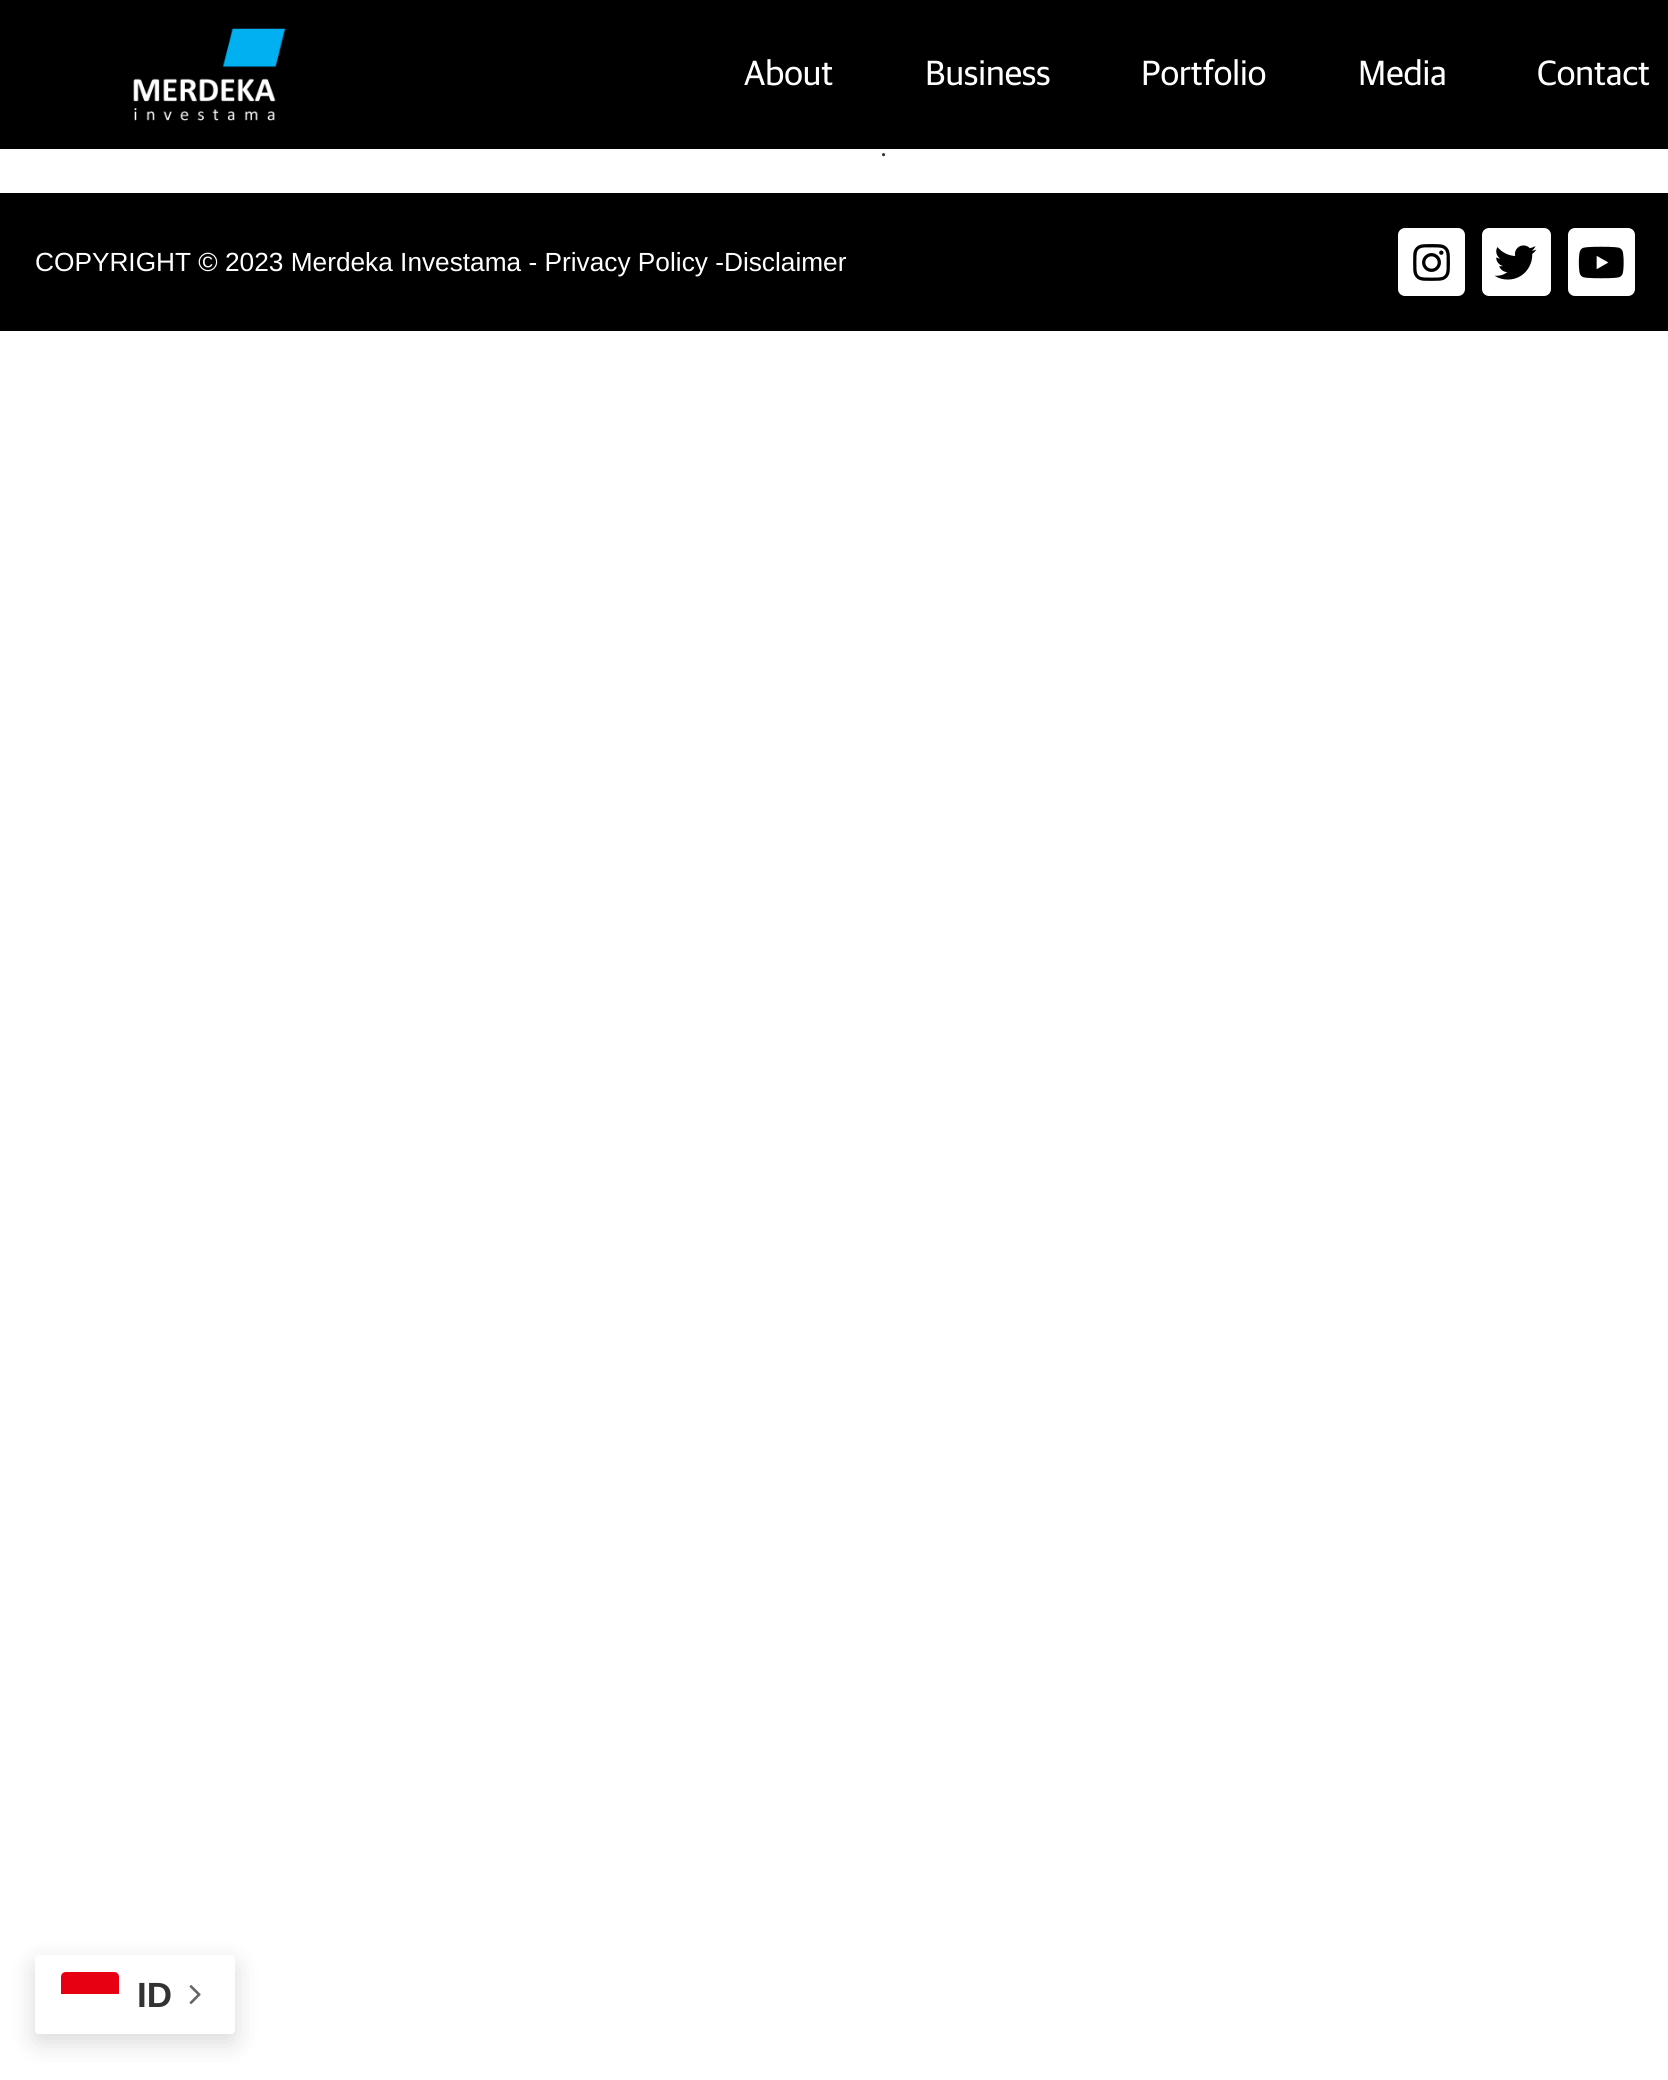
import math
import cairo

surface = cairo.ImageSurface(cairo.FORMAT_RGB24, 1668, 2080)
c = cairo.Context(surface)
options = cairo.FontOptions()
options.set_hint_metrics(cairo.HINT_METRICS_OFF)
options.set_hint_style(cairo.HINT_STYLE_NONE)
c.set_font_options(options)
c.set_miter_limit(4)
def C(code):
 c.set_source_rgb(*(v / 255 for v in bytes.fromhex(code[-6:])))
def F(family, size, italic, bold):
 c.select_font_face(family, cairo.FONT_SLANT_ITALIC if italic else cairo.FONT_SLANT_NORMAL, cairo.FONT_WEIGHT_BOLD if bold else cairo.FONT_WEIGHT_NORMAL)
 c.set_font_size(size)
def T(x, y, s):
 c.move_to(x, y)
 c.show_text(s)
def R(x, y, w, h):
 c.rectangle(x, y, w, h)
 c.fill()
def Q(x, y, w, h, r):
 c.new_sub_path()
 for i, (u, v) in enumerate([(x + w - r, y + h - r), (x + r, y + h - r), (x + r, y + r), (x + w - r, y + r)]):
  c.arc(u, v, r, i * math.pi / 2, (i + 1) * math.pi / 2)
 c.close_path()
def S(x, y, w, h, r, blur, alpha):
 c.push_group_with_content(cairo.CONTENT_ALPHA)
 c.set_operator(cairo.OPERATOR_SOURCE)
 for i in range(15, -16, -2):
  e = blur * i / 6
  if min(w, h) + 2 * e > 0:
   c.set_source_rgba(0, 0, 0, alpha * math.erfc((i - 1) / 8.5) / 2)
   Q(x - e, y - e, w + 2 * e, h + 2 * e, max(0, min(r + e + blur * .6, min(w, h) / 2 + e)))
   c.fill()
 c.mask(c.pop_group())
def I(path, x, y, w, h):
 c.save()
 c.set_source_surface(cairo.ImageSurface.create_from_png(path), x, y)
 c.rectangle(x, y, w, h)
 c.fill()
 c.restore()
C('ffffff')
c.paint()
C('000000')
R(0,0,1668,149)
I('1.png',133,28,153,93)
F('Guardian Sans',35,0,0)
C('ffffff')
T(744,85,'About')
T(925,85,'Business')
T(1141,85,'Portfolio')
T(1358,85,'Media')
T(1537,85,'Contact')
F('Roboto',28,0,0)
C('333333')
T(880,156,'.')
C('000000')
R(0,193,1668,138)
F('Liberation Sans',26.25,0,0)
C('ffffff')
T(35,271,'COPYRIGHT © 2023 Merdeka Investama - Privacy Policy -Disclaimer')
Q(1398,228,67,68,7)
c.fill()
I('2.png',1413,244,37,37)
Q(1482,228,69,68,7)
c.fill()
I('3.png',1494,245,43,35)
Q(1568,228,67,68,7)
c.fill()
I('4.png',1578,246,46,33)
C('000000')
S(35,1964,200,78,4,13,.15)
C('ffffff')
Q(35,1955,200,79,4)
c.fill()
C('e70011')
c.new_path()
c.move_to(66,1972)
c.line_to(114,1972)
c.curve_to(117,1972,119,1974,119,1977)
c.line_to(119,1995)
c.line_to(61,1995)
c.line_to(61,1977)
c.curve_to(61,1974,63,1972,66,1972)
c.close_path()
c.fill()
C('ffffff')
c.new_path()
c.move_to(61,1994)
c.line_to(119,1994)
c.line_to(119,2011)
c.curve_to(119,2014,117,2016,114,2016)
c.line_to(66,2016)
c.curve_to(63,2016,61,2014,61,2011)
c.close_path()
c.fill()
F('Liberation Sans',35,0,1)
C('333333')
T(137,2007,'ID')
I('5.png',189,1985,12,19)
surface.write_to_png('o.png')
